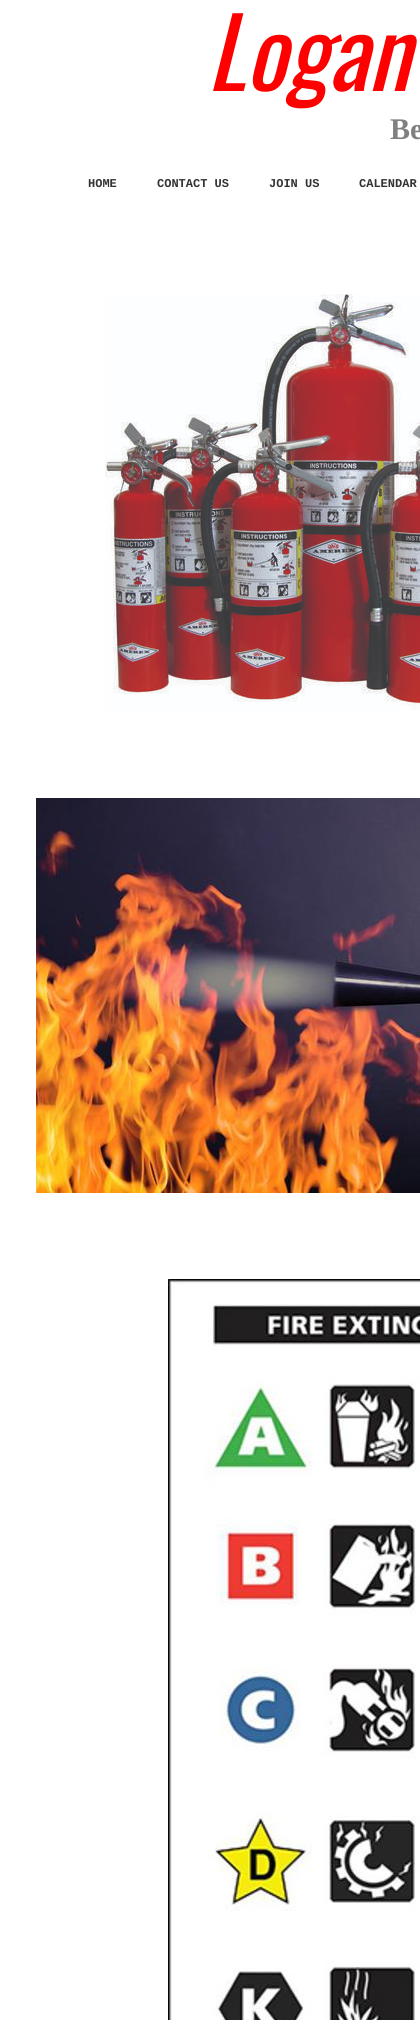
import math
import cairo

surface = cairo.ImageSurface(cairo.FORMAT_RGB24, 420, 2020)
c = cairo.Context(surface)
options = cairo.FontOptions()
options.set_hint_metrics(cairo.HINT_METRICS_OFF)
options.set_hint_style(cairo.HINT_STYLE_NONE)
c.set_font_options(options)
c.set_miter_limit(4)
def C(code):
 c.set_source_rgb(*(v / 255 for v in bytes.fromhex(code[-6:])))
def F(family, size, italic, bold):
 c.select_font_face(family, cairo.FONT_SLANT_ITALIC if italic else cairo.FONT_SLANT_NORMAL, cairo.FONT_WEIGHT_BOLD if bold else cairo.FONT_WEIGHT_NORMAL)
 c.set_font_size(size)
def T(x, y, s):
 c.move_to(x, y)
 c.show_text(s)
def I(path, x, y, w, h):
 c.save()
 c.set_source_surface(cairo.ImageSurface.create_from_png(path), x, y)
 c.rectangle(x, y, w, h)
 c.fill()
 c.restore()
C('ffffff')
c.paint()
F('Oswald',96,1,0)
C('ff0000')
T(207,91,'Logan')
F('Liberation Serif',30,0,1)
C('808080')
T(390,139,'Be')
F('Liberation Mono',12,0,1)
C('333333')
T(88,187,'HOME')
T(157,187,'CONTACT US')
T(269,187,'JOIN US')
T(359,187,'CALENDAR')
I('1.png',105,294,315,416)
I('2.png',36,798,384,395)
I('3.png',168,1279,252,741)
surface.write_to_png('o.png')
